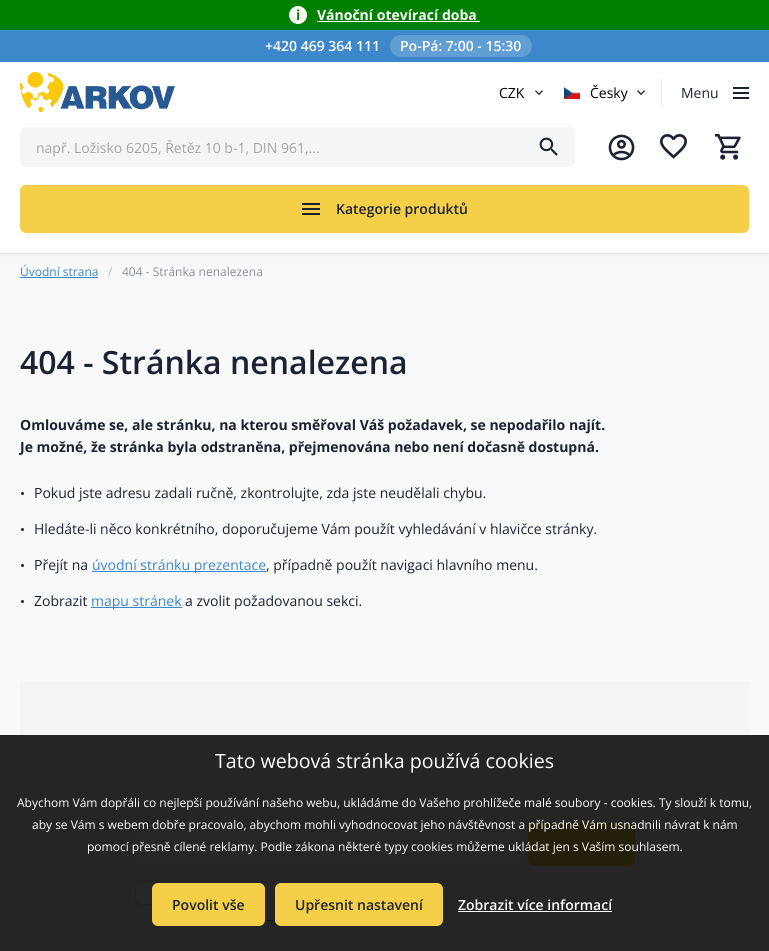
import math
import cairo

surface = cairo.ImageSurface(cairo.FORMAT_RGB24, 769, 951)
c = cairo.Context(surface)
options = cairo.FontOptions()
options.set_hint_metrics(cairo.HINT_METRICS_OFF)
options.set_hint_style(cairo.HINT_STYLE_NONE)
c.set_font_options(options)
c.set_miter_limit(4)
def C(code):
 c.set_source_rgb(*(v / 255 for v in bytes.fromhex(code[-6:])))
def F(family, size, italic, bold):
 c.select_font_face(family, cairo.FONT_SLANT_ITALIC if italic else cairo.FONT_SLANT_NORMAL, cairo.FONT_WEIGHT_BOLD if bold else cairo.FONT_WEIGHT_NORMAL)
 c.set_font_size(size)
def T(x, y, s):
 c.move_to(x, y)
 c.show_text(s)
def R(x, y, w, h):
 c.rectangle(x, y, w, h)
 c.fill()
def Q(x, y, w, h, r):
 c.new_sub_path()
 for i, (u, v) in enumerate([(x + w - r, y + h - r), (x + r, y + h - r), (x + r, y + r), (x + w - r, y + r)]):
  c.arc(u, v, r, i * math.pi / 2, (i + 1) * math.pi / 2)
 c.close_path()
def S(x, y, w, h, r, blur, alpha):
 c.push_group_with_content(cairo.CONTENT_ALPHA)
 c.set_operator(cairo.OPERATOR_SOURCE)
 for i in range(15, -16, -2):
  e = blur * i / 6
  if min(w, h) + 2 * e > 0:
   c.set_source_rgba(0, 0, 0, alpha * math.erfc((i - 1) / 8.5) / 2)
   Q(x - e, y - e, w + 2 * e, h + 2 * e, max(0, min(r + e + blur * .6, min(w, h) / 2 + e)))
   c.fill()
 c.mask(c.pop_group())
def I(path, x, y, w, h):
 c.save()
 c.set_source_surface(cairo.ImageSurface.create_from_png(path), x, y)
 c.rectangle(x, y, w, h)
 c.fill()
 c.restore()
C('f9f9f9')
c.paint()
C('008000')
R(0,0,769,30)
C('ffffff')
c.arc(298,15,9,0,2 * math.pi)
c.fill()
F('Open Sans',14,0,1)
C('008000')
T(296,20,'i')
C('ffffff')
T(317,20,'Vánoční otevírací doba')
R(317,21,163,1)
C('000000')
S(0,32,769,223,0,5,.05)
c.set_source_rgba(0,0,0,0.05)
R(0,253,769,1)
C('ffffff')
R(0,62,769,191)
C('3c88ca')
R(0,30,769,32)
F('Open Sans SemiBold',14,0,0)
C('ffffff')
T(265,51,'+420 469 364 111')
T(400,51,'Po-Pá: 7:00 - 15:30')
c.set_source_rgba(1,1,1,0.19)
Q(390,35,142,22,11)
c.fill()
C('f5f5f5')
Q(20,127,555,40,6)
c.fill()
F('Open Sans',14,0,0)
C('a5a5a5')
T(36,153,'např. Ložisko 6205, Řetěz 10 b-1, DIN 961,...')
I('1.png',539,137,19,19)
I('2.png',608,134,27,27)
I('3.png',660,134,27,25)
I('4.png',715,134,26,26)
I('5.png',20,72,155,40)
C('000000')
T(499,98,'CZK')
I('6.png',535,90,8,5)
I('7.png',564,87,16,12)
T(590,98,'Česky')
I('6.png',637,90,8,5)
C('e8e9eb')
R(661,79,1,28)
C('1b2333')
T(681,98,'Menu')
I('8.png',733,87,16,12)
C('f4cf47')
Q(20,185,729,48,6)
c.fill()
I('9.png',302,203,18,12)
F('Open Sans SemiBold',14,0,0)
C('1b2333')
T(336,214,'Kategorie produktů')
F('Open Sans',12,0,0)
C('3c88ca')
T(20,276,'Úvodní strana')
R(20,277,78,1)
C('9ac0e1')
T(108,276,'/')
C('8a8e96')
T(122,276,'404 - Stránka nenalezena')
F('Open Sans SemiBold',32,0,0)
C('1b2333')
T(20,374,'404 - Stránka nenalezena')
F('Open Sans',14,0,1)
T(20,430,'Omlouváme se, ale stránku, na kterou směřoval Váš požadavek, se nepodařilo najít.')
T(20,452,'Je možné, že stránka byla odstraněna, přejmenována nebo není dočasně dostupná.')
c.new_path()
c.arc(22.5,493.5,1.5,0,2 * math.pi)
c.fill()
F('Open Sans',14,0,0)
T(34,498,'Pokud jste adresu zadali ručně, zkontrolujte, zda jste neudělali chybu.')
c.new_path()
c.arc(22.5,529.5,1.5,0,2 * math.pi)
c.fill()
T(34,534,'Hledáte-li něco konkrétního, doporučujeme Vám použít vyhledávání v hlavičce stránky.')
c.new_path()
c.arc(22.5,565.5,1.5,0,2 * math.pi)
c.fill()
T(34,570,'Přejít na')
C('3c88ca')
R(92,571,174,1)
T(92,570,'úvodní stránku prezentace')
C('1b2333')
T(266,570,', případně použít navigaci hlavního menu.')
c.new_path()
c.arc(22.5,601.5,1.5,0,2 * math.pi)
c.fill()
T(34,606,'Zobrazit')
C('3c88ca')
R(91,607,91,1)
T(91,606,'mapu stránek')
C('1b2333')
T(185,606,'a zvolit požadovanou sekci.')
C('f5f5f5')
R(20,681,729,270)
C('ffffff')
Q(135.5,823.5,384,42,5.5)
c.fill_preserve()
C('f5f5f5')
c.set_line_width(1)
c.stroke()
C('f4cf47')
Q(528,823,107,43,6)
c.fill()
C('ffffff')
Q(135.5,881.5,23,23,5.5)
c.fill_preserve()
C('e5e5e5')
c.stroke()
C('3c88ca')
R(264,920,12,1)
c.set_source_rgba(0,0,0,0.85)
R(0,735,769,216)
F('Open Sans',19.6,0,0)
C('ffffff')
T(215,768,'Tato webová stránka používá cookies')
F('Open Sans',12,0,0)
T(17,807,'Abychom Vám dopřáli co nejlepší používání našeho webu, ukládáme do Vašeho prohlížeče malé soubory - cookies. Ty slouží k tomu,')
T(32,829,'aby se Vám s webem dobře pracovalo, abychom mohli vyhodnocovat jeho návštěvnost a případně Vám usnadnili návrat k nám')
T(87,851,'pomocí přesně cílené reklamy. Podle zákona některé typy cookies můžeme ukládat jen s Vaším souhlasem.')
C('f4cf47')
Q(152,883,113,43,6)
c.fill()
F('Open Sans SemiBold',14,0,0)
C('1b2333')
T(172,910,'Povolit vše')
C('f4cf47')
Q(275,883,168,43,6)
c.fill()
C('1b2333')
T(295,910,'Upřesnit nastavení')
C('ffffff')
T(458,910,'Zobrazit více informací')
R(458,911,154,1)
surface.write_to_png('o.png')
